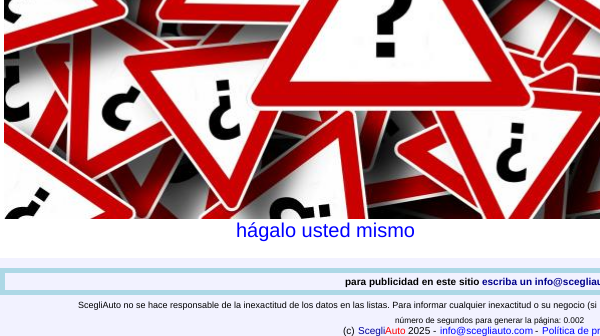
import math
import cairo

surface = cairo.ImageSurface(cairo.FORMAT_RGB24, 600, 336)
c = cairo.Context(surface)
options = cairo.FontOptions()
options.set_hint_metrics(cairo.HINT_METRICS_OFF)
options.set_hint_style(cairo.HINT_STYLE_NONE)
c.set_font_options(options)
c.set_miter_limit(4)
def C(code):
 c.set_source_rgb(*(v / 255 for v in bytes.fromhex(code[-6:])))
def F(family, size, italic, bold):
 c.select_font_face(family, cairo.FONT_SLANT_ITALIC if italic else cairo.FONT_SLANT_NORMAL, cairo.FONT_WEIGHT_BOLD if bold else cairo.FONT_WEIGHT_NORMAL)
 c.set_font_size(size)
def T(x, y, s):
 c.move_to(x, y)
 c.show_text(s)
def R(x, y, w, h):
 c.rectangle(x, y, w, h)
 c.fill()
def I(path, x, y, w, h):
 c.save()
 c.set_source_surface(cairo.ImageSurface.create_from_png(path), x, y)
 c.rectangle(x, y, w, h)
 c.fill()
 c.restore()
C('ffffff')
c.paint()
I('1.png',4,0,596,219)
F('Liberation Sans',20,0,0)
C('0000ff')
T(236,237,'hágalo usted mismo')
C('f2f2ff')
R(0,258,600,78)
c.rectangle(2.5,270.5,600,22)
C('add8e6')
c.set_line_width(5)
c.stroke()
F('Liberation Sans',10,0,1)
C('000000')
T(345,285,'para publicidad en este sitio')
C('00008b')
T(482,285,'escriba un info@scegliau')
F('Liberation Sans',9,0,0)
C('000000')
T(78,308,'ScegliAuto no se hace responsable de la inexactitud de los datos en las listas. Para informar cualquier inexactitud o su negocio (si')
F('Liberation Sans',8.3,0,0)
T(395,323,'número de segundos para generar la página: 0.002')
F('Liberation Sans',10,0,0)
T(343,334,'(c)')
C('000099')
T(358,334,'Scegli')
C('ff0000')
T(385,334,'Auto')
C('000000')
T(408,334,'2025 -')
C('0000ff')
T(440,334,'info@scegliauto.com')
C('000000')
T(535,334,'-')
C('0000ff')
T(542,334,'Política de pr')
surface.write_to_png('o.png')
